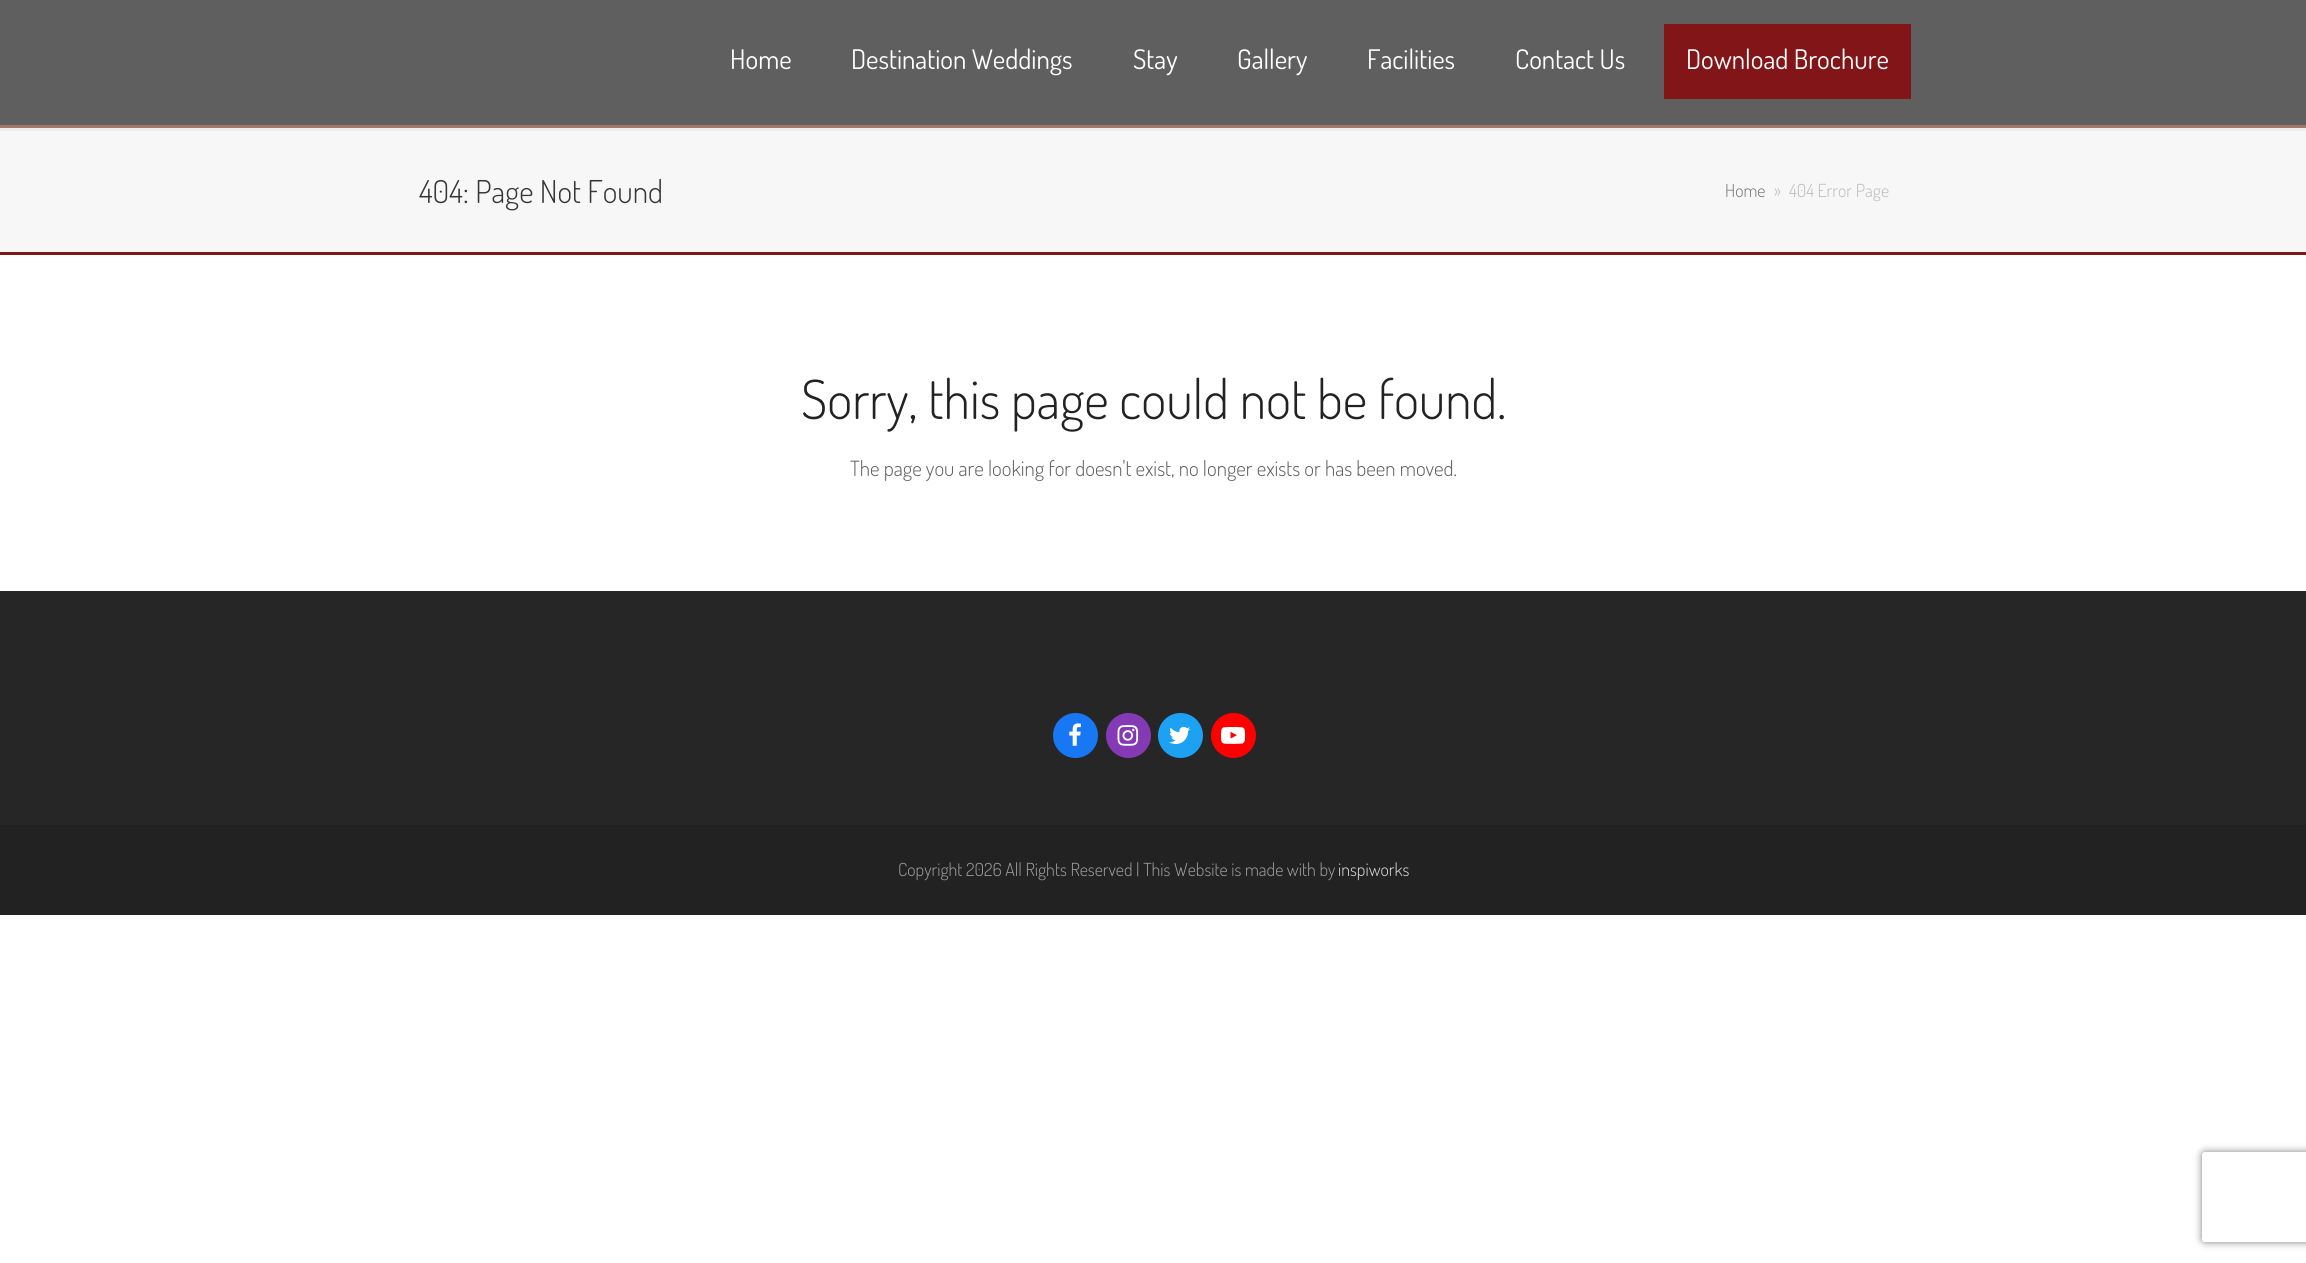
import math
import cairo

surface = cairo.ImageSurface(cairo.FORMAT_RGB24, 2306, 1263)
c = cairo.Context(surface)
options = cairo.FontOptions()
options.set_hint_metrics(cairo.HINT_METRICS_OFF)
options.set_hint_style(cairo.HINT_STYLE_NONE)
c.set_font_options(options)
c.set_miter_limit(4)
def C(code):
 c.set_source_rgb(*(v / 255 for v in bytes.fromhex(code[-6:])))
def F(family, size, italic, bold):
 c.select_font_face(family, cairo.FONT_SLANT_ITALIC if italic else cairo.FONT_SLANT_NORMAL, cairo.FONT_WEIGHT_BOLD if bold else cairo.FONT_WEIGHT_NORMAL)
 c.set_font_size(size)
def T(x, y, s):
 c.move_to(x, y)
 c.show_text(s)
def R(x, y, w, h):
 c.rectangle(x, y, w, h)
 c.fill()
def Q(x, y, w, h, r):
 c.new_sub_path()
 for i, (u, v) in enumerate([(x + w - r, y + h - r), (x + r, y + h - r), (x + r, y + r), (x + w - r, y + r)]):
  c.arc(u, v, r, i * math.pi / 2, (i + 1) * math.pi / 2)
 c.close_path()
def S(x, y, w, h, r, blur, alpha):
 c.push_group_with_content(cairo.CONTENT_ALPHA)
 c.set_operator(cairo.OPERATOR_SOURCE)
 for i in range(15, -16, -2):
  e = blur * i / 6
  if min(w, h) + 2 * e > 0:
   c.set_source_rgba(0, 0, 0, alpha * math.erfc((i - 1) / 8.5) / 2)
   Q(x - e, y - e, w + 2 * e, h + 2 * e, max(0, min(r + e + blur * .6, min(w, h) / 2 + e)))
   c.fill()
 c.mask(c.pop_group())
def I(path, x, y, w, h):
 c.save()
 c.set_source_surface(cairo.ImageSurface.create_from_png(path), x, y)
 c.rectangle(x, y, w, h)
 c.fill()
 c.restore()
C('ffffff')
c.paint()
C('5f5f5f')
R(0,0,2306,125)
C('a3786a')
R(0,125,2306,3)
F('Dosis',27,0,0)
C('ffffff')
T(730,69,'Home')
T(851,69,'Destination Weddings')
T(1133,69,'Stay')
T(1237,69,'Gallery')
T(1367,69,'Facilities')
T(1515,69,'Contact Us')
C('821517')
R(1664,24,247,75)
C('ffffff')
T(1686,69,'Download Brochure')
C('f7f7f7')
R(0,131,2306,121)
C('eeeeee')
R(0,128,2306,3)
C('821517')
R(0,252,2306,3)
F('Dosis Light',31.5,0,0)
C('363636')
T(419,203,'404: Page Not Found')
F('Dosis Light',18,0,0)
C('777777')
T(1725,197,'Home')
C('bcbcbc')
T(1774,197,'»')
T(1789,197,'404 Error Page')
F('Dosis Light',54,0,0)
C('222222')
T(801,419,'Sorry, this page could not be found.')
F('Dosis Light',21,0,0)
C('616161')
T(850,476,'The page you are looking for doesn\'t exist, no longer exists or has been moved.')
C('262626')
R(0,591,2306,234)
C('1877f2')
c.new_path()
c.arc(1075.5,735.5,22.5,0,2 * math.pi)
c.fill()
I('1.png',1069,723,12,23)
C('833ab4')
c.arc(1128.5,735.5,22.5,0,2 * math.pi)
c.fill()
I('2.png',1117,725,22,21)
C('1da1f2')
c.arc(1180.5,735.5,22.5,0,2 * math.pi)
c.fill()
I('3.png',1169,726,21,18)
C('ff0000')
c.arc(1233.5,735.5,22.5,0,2 * math.pi)
c.fill()
I('4.png',1221,727,24,17)
C('222222')
R(0,825,2306,90)
F('Dosis Light',18,0,0)
C('9e9e9e')
T(898,876,'Copyright 2026 All Rights Reserved | This Website is made with by')
C('dbdbdb')
T(1338,876,'inspiworks')
c.save()
c.set_fill_rule(cairo.FILL_RULE_EVEN_ODD)
c.new_path()
c.move_to(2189,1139)
c.line_to(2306,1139)
c.line_to(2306,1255)
c.line_to(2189,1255)
c.close_path()
c.move_to(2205,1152)
c.line_to(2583,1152)
c.curve_to(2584.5,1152,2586,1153.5,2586,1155)
c.line_to(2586,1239)
c.curve_to(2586,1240.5,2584.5,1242,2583,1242)
c.line_to(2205,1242)
c.curve_to(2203.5,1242,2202,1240.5,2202,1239)
c.line_to(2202,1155)
c.curve_to(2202,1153.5,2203.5,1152,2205,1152)
c.close_path()
c.clip()
C('808080')
S(2202,1152,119,90,3,4,1)
c.restore()
surface.write_to_png('o.png')
